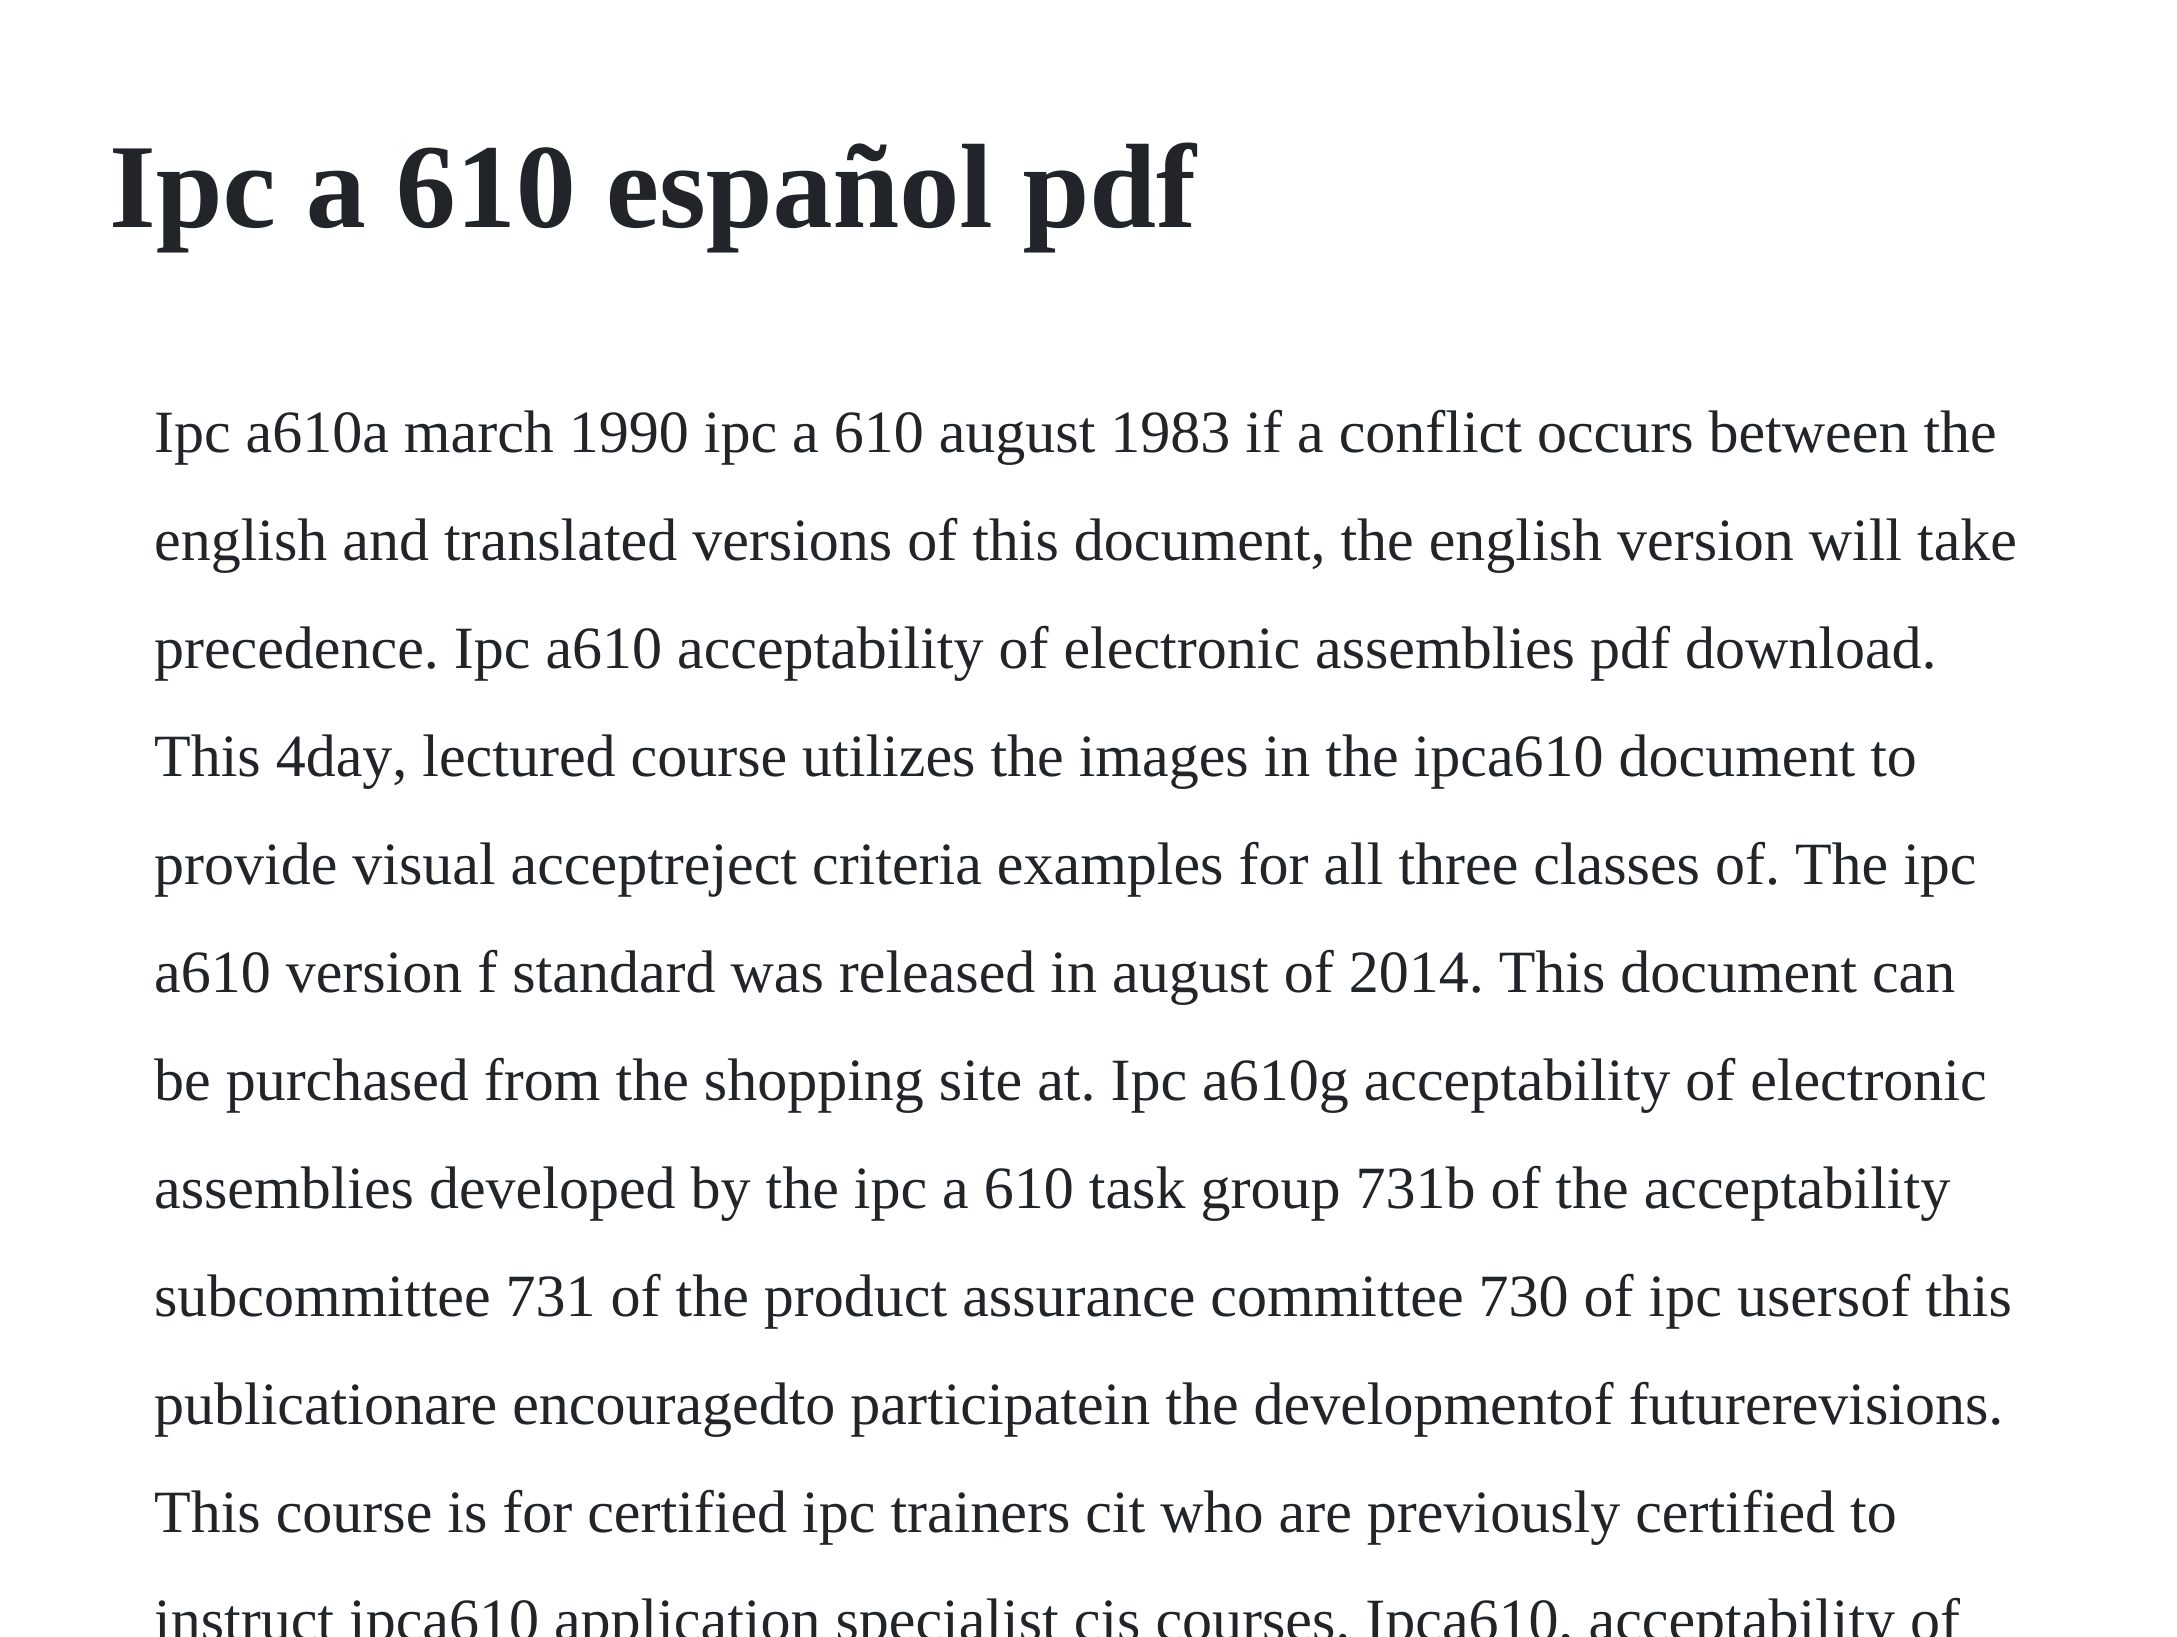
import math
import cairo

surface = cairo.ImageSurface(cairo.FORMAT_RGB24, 2177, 1637)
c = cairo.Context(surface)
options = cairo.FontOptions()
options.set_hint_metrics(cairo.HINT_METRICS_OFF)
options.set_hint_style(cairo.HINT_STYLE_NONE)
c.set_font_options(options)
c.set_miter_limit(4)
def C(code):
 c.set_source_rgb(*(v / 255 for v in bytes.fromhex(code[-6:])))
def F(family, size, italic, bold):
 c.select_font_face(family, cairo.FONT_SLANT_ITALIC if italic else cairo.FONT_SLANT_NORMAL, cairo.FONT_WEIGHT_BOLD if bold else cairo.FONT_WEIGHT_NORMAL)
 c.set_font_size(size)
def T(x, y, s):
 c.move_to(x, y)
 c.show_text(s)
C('ffffff')
c.paint()
F('Liberation Serif',120,0,1)
C('212529')
T(109,227,'Ipc a 610 español pdf')
F('Liberation Serif',60,0,0)
T(154,452,'Ipc a610a march 1990 ipc a 610 august 1983 if a conflict occurs between the')
T(154,560,'english and translated versions of this document, the english version will take')
T(154,668,'precedence. Ipc a610 acceptability of electronic assemblies pdf download.')
T(154,776,'This 4day, lectured course utilizes the images in the ipca610 document to')
T(154,884,'provide visual acceptreject criteria examples for all three classes of. The ipc')
T(154,992,'a610 version f standard was released in august of 2014. This document can')
T(154,1100,'be purchased from the shopping site at. Ipc a610g acceptability of electronic')
T(154,1208,'assemblies developed by the ipc a 610 task group 731b of the acceptability')
T(154,1316,'subcommittee 731 of the product assurance committee 730 of ipc usersof this')
T(154,1424,'publicationare encouragedto participatein the developmentof futurerevisions.')
T(154,1532,'This course is for certified ipc trainers cit who are previously certified to')
T(154,1640,'instruct ipca610 application specialist cis courses. Ipca610, acceptability of')
surface.write_to_png('o.png')
